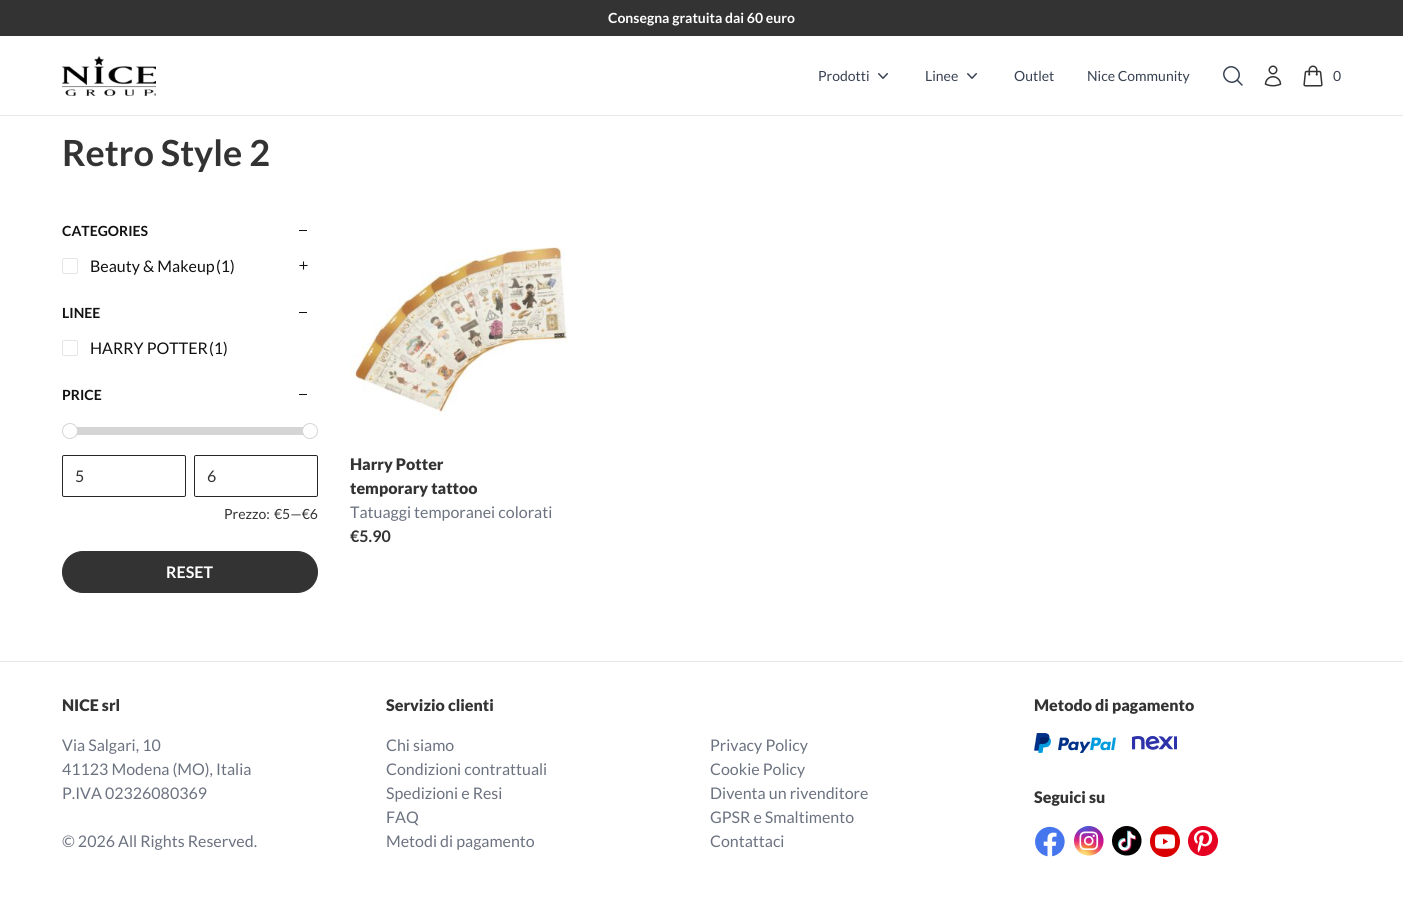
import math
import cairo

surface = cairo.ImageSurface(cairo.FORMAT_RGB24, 1403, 907)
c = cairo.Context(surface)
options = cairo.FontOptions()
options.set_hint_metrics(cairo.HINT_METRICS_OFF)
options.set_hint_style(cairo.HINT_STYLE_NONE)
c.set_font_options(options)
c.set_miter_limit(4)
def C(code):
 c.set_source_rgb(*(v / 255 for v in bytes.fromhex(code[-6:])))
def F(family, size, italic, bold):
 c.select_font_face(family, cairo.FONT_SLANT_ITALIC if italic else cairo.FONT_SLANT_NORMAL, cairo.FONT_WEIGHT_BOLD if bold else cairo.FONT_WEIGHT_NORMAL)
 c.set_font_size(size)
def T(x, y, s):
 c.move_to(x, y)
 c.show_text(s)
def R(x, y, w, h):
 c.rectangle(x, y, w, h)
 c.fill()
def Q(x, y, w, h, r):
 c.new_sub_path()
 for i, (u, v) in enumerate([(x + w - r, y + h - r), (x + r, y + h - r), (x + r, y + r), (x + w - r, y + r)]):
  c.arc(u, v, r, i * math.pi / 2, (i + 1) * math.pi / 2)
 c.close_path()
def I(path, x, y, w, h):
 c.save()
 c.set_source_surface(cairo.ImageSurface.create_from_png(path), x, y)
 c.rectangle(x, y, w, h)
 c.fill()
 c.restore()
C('ffffff')
c.paint()
C('333333')
R(0,0,1403,36)
F('Lato',14,0,1)
C('ffffff')
T(608,23,'Consegna gratuita dai 60 euro')
I('1.png',62,56,94,40)
F('Lato',14,0,0)
C('374151')
T(818,81,'Prodotti')
I('2.png',878,73,10,6)
T(925,81,'Linee')
I('2.png',967,73,10,6)
T(1014,81,'Outlet')
T(1087,81,'Nice Community')
c.new_path()
c.move_to(1242,85)
c.line_to(1237,80)
c.move_to(1237,80)
c.curve_to(1244,73,1233,62,1226,69)
c.curve_to(1219,76,1230,87,1237,80)
c.close_path()
c.set_line_width(1.5)
c.set_line_cap(cairo.LINE_CAP_ROUND)
c.set_line_join(cairo.LINE_JOIN_ROUND)
c.stroke()
I('3.png',1264,65,18,22)
I('4.png',1303,65,20,22)
T(1333,81,'0')
C('e5e7eb')
R(0,115,1403,1)
F('Lato',36,0,1)
C('333333')
T(62,166,'Retro Style 2')
F('Lato',14,0,1)
C('111111')
T(62,236,'CATEGORIES')
R(299,230,8,1)
Q(62.5,258.5,15,15,1.5)
C('e5e5e5')
c.set_line_width(1)
c.set_line_cap(cairo.LINE_CAP_BUTT)
c.set_line_join(cairo.LINE_JOIN_MITER)
c.stroke()
F('Lato',16,0,0)
C('111111')
T(90,272,'Beauty & Makeup')
T(216,272,'(1)')
I('5.png',299,261,9,9)
F('Lato',14,0,1)
T(62,318,'LINEE')
R(299,312,8,1)
Q(62.5,340.5,15,15,1.5)
C('e5e5e5')
c.stroke()
F('Lato',16,0,0)
C('111111')
T(90,354,'HARRY POTTER')
T(209,354,'(1)')
F('Lato',14,0,1)
T(62,400,'PRICE')
R(299,394,8,1)
C('d5d5d5')
R(70,427,240,8)
C('ffffff')
c.new_path()
c.arc(70,431,7.5,0,2 * math.pi)
c.fill_preserve()
C('d5d5d5')
c.stroke()
C('ffffff')
c.arc(310,431,7.5,0,2 * math.pi)
c.fill_preserve()
C('d5d5d5')
c.stroke()
Q(62.5,455.5,123,41,1.5)
C('262626')
c.stroke()
F('Lato',16,0,0)
C('333333')
T(75,482,'5')
Q(194.5,455.5,123,41,1.5)
C('262626')
c.stroke()
C('333333')
T(207,482,'6')
F('Lato',14,0,0)
T(224,519,'Prezzo:')
T(274,519,'€5—€6')
Q(62.5,551.5,255,41,20.5)
c.fill_preserve()
c.stroke()
F('Lato',16,0,1)
C('ffffff')
T(166,578,'RESET')
I('6.png',350,247,218,168)
F('Lato Black',16,0,0)
C('333333')
T(350,470,'Harry Potter')
T(350,494,'temporary tattoo')
F('Lato',16,0,0)
C('6b7280')
T(350,518,'Tatuaggi temporanei colorati')
F('Lato',16,0,1)
C('333333')
T(350,542,'€5.90')
C('e5e7eb')
R(0,661,1403,1)
F('Lato Black',16,0,0)
C('333333')
T(62,711,'NICE srl')
F('Lato',16,0,0)
C('6b7280')
T(62,751,'Via Salgari, 10')
T(62,775,'41123 Modena (MO), Italia')
T(62,799,'P.IVA 02326080369')
T(62,847,'© 2026 All Rights Reserved.')
F('Lato Black',16,0,0)
C('333333')
T(386,711,'Servizio clienti')
F('Lato',16,0,0)
C('6b7280')
T(386,751,'Chi siamo')
T(386,775,'Condizioni contrattuali')
T(386,799,'Spedizioni e Resi')
T(386,823,'FAQ')
T(386,847,'Metodi di pagamento')
T(710,751,'Privacy Policy')
T(710,775,'Cookie Policy')
T(710,799,'Diventa un rivenditore')
T(710,823,'GPSR e Smaltimento')
T(710,847,'Contattaci')
F('Lato Black',16,0,0)
C('333333')
T(1034,711,'Metodo di pagamento')
I('7.png',1034,733,82,20)
I('8.png',1132,736,45,14)
T(1034,803,'Seguici su')
I('9.png',1035,826,30,31)
I('10.png',1074,826,30,30)
I('11.png',1112,826,30,30)
I('12.png',1150,826,30,31)
I('13.png',1188,826,30,30)
surface.write_to_png('o.png')
